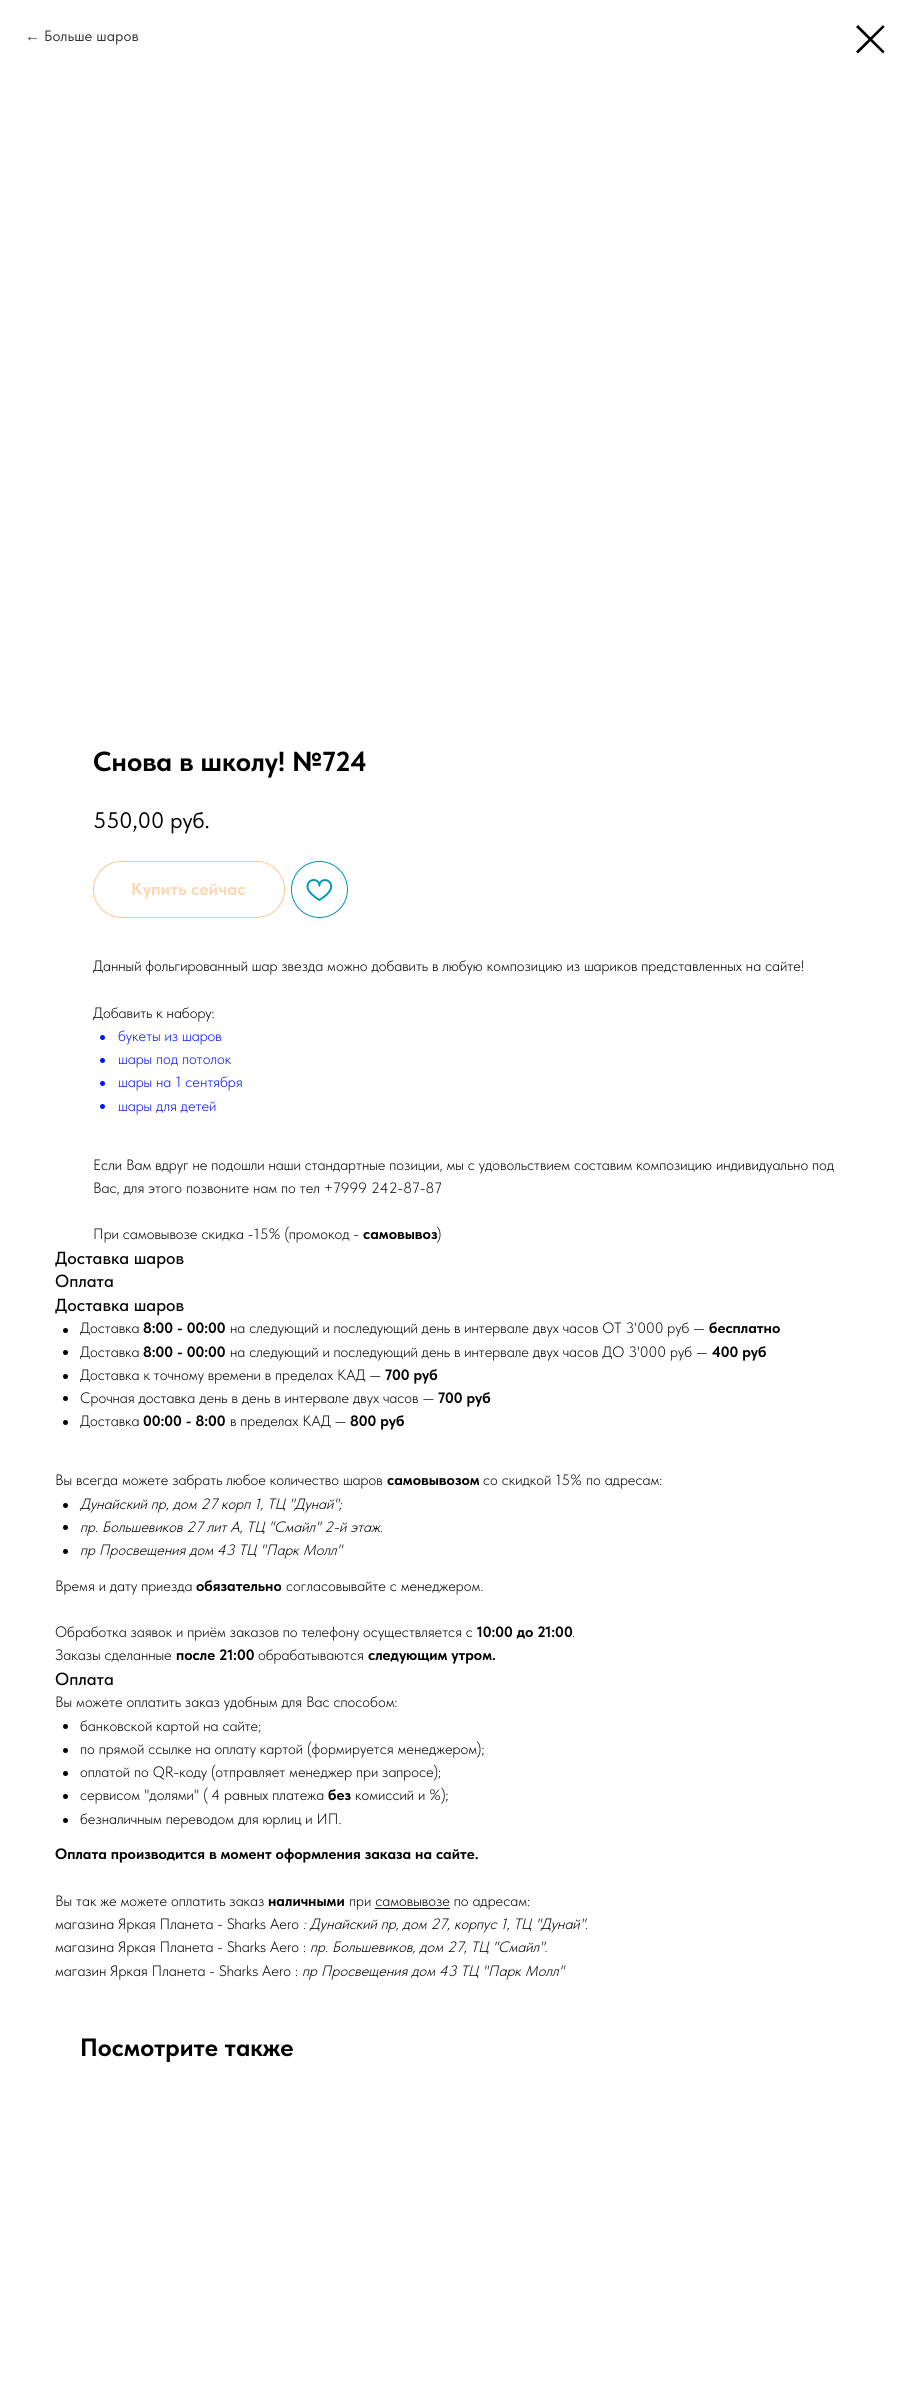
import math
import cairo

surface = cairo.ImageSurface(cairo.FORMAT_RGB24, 909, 2407)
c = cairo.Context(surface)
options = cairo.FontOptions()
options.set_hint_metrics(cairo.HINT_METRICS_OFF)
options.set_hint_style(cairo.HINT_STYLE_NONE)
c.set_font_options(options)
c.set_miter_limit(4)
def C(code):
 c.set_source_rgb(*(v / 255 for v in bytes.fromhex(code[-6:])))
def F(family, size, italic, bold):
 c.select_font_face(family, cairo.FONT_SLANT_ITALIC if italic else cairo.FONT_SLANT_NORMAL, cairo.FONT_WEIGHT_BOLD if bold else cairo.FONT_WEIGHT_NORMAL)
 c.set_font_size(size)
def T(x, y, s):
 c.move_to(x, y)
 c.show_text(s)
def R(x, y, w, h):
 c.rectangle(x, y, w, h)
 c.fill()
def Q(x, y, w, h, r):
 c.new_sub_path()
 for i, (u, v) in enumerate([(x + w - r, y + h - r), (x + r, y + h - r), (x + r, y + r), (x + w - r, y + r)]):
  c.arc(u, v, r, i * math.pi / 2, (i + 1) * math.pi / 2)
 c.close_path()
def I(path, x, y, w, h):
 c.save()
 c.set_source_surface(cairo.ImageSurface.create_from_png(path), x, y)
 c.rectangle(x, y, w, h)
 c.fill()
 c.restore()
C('ffffff')
c.paint()
F('Liberation Sans',15,0,0)
C('333333')
T(25,41,'←')
F('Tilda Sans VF',15,0,0)
T(44,41,'Больше шаров')
C('000000')
c.set_fill_rule(cairo.FILL_RULE_EVEN_ODD)
c.new_path()
c.move_to(856,27)
c.line_to(858,25)
c.line_to(884.5,51.5)
c.line_to(883,53.5)
c.close_path()
c.fill()
c.new_path()
c.move_to(883,25)
c.line_to(884.5,27)
c.line_to(858,53.5)
c.line_to(856,51.5)
c.close_path()
c.fill()
F('Tilda Sans VF',27.5,0,1)
T(93,771,'Снова в школу! №724')
F('Tilda Sans VF',22.5,0,0)
T(93,828,'550,00')
T(170,828,'руб.')
Q(93.5,861.5,191,56,28)
C('fcc592')
c.set_line_width(1)
c.stroke()
F('Tilda Sans VF',17.5,0,1)
C('fdd6b2')
T(131,895,'Купить сейчас')
c.new_path()
c.arc(319.5,889.5,28,0,2 * math.pi)
C('0095b6')
c.stroke()
I('1.png',306,879,27,22)
F('Tilda Sans VF Light',15,0,0)
C('000000')
T(93,971,'Данный фольгированный шар звезда можно добавить в любую композицию из шариков представленных на сайте!')
T(93,1018,'Добавить к набору:')
C('0515fa')
c.new_path()
c.arc(102.5,1037.5,2.5,0,2 * math.pi)
c.fill()
T(118,1041,'букеты из шаров')
c.new_path()
c.arc(102.5,1060.5,2.5,0,2 * math.pi)
c.fill()
T(118,1064,'шары под потолок')
c.new_path()
c.arc(102.5,1083.5,2.5,0,2 * math.pi)
c.fill()
T(118,1087,'шары на 1 сентября')
c.new_path()
c.arc(102.5,1106.5,2.5,0,2 * math.pi)
c.fill()
T(118,1111,'шары для детей')
C('000000')
T(93,1170,'Если Вам вдруг не подошли наши стандартные позиции, мы с удовольствием составим композицию индивидуально под')
T(93,1193,'Вас, для этого позвоните нам по тел +7999 242-87-87')
T(93,1239,'При самовывозе скидка -15% (промокод -')
F('Tilda Sans VF',15,0,1)
T(363,1239,'самовывоз')
F('Tilda Sans VF Light',15,0,0)
T(437,1239,')')
F('Tilda Sans VF Medium',17.5,0,0)
T(55,1264,'Доставка шаров')
T(55,1287,'Оплата')
T(55,1311,'Доставка шаров')
c.new_path()
c.arc(65.5,1330.5,2.5,0,2 * math.pi)
c.fill()
F('Tilda Sans VF Light',15,0,0)
T(80,1333,'Доставка')
F('Tilda Sans VF',15,0,1)
T(143,1333,'8:00 - 00:00')
F('Tilda Sans VF Light',15,0,0)
T(230,1333,'на следующий и последующий день в интервале двух часов ОТ 3\'000 руб —')
F('Tilda Sans VF',15,0,1)
T(709,1333,'бесплатно')
c.new_path()
c.arc(65.5,1352.5,2.5,0,2 * math.pi)
c.fill()
F('Tilda Sans VF Light',15,0,0)
T(80,1357,'Доставка')
F('Tilda Sans VF',15,0,1)
T(143,1357,'8:00 - 00:00')
F('Tilda Sans VF Light',15,0,0)
T(230,1357,'на следующий и последующий день в интервале двух часов ДО 3\'000 руб —')
F('Tilda Sans VF',15,0,1)
T(712,1357,'400 руб')
c.new_path()
c.arc(65.5,1376.5,2.5,0,2 * math.pi)
c.fill()
F('Tilda Sans VF Light',15,0,0)
T(80,1380,'Доставка к точному времени в пределах КАД —')
F('Tilda Sans VF',15,0,1)
T(385,1380,'700 руб')
c.new_path()
c.arc(65.5,1398.5,2.5,0,2 * math.pi)
c.fill()
F('Tilda Sans VF Light',15,0,0)
T(80,1403,'Срочная доставка день в день в интервале двух часов —')
F('Tilda Sans VF',15,0,1)
T(438,1403,'700 руб')
c.new_path()
c.arc(65.5,1422.5,2.5,0,2 * math.pi)
c.fill()
F('Tilda Sans VF Light',15,0,0)
T(80,1426,'Доставка')
F('Tilda Sans VF',15,0,1)
T(143,1426,'00:00 - 8:00')
F('Tilda Sans VF Light',15,0,0)
T(230,1426,'в пределах КАД —')
F('Tilda Sans VF',15,0,1)
T(350,1426,'800 руб')
F('Tilda Sans VF Light',15,0,0)
T(55,1485,'Вы всегда можете забрать любое количество шаров')
F('Tilda Sans VF',15,0,1)
T(387,1485,'самовывозом')
F('Tilda Sans VF Light',15,0,0)
T(483,1485,'со скидкой 15% по адресам:')
c.new_path()
c.arc(65.5,1505.5,2.5,0,2 * math.pi)
c.fill()
F('Tilda Sans VF Light',15,1,0)
T(80,1509,'Дунайский пр, дом 27 корп 1, ТЦ "Дунай";')
c.new_path()
c.arc(65.5,1527.5,2.5,0,2 * math.pi)
c.fill()
T(80,1532,'пр. Большевиков 27 лит А, ТЦ "Смайл" 2-й этаж.')
c.new_path()
c.arc(65.5,1551.5,2.5,0,2 * math.pi)
c.fill()
T(80,1555,'пр Просвещения дом 43 ТЦ "Парк Молл"')
F('Tilda Sans VF Light',15,0,0)
T(55,1591,'Время и дату приезда')
F('Tilda Sans VF',15,0,1)
T(196,1591,'обязательно')
F('Tilda Sans VF Light',15,0,0)
T(286,1591,'согласовывайте с менеджером.')
T(55,1637,'Обработка заявок и приём заказов по телефону осуществляется с')
F('Tilda Sans VF',15,0,1)
T(477,1637,'10:00 до 21:00')
F('Tilda Sans VF Light',15,0,0)
T(572,1637,'.')
T(55,1660,'Заказы сделанные')
F('Tilda Sans VF',15,0,1)
T(176,1660,'после 21:00')
F('Tilda Sans VF Light',15,0,0)
T(258,1660,'обрабатываются')
F('Tilda Sans VF',15,0,1)
T(368,1660,'следующим утром.')
F('Tilda Sans VF Medium',17.5,0,0)
T(55,1685,'Оплата')
F('Tilda Sans VF Light',15,0,0)
T(55,1707,'Вы можете оплатить заказ удобным для Вас способом:')
c.new_path()
c.arc(65.5,1726.5,2.5,0,2 * math.pi)
c.fill()
T(80,1731,'банковской картой на сайте;')
c.new_path()
c.arc(65.5,1750.5,2.5,0,2 * math.pi)
c.fill()
T(80,1754,'по прямой ссылке на оплату картой (формируется менеджером);')
c.new_path()
c.arc(65.5,1773.5,2.5,0,2 * math.pi)
c.fill()
T(80,1777,'оплатой по QR-коду (отправляет менеджер при запросе);')
c.new_path()
c.arc(65.5,1796.5,2.5,0,2 * math.pi)
c.fill()
T(80,1800,'сервисом "долями" ( 4 равных платежа')
F('Tilda Sans VF',15,0,1)
T(328,1800,'без')
F('Tilda Sans VF Light',15,0,0)
T(355,1800,'комиссий и %);')
c.new_path()
c.arc(65.5,1820.5,2.5,0,2 * math.pi)
c.fill()
T(80,1824,'безналичным переводом для юрлиц и ИП.')
F('Tilda Sans VF',15,0,1)
T(55,1859,'Оплата производится в момент оформления заказа на сайте.')
F('Tilda Sans VF Light',15,0,0)
T(55,1906,'Вы так же можете оплатить заказ')
F('Tilda Sans VF',15,0,1)
T(268,1906,'наличными')
F('Tilda Sans VF Light',15,0,0)
T(349,1906,'при самовывозе по адресам:')
R(375,1908,75,1)
T(55,1929,'магазина Яркая Планета - Sharks Aero')
F('Tilda Sans VF Light',15,1,0)
T(303,1929,': Дунайский пр, дом 27, корпус 1, ТЦ "Дунай".')
F('Tilda Sans VF Light',15,0,0)
T(55,1952,'магазина Яркая Планета - Sharks Aero :')
F('Tilda Sans VF Light',15,1,0)
T(310,1952,'пр. Большевиков, дом 27, ТЦ "Смайл".')
F('Tilda Sans VF Light',15,0,0)
T(55,1976,'магазин Яркая Планета - Sharks Aero :')
F('Tilda Sans VF Light',15,1,0)
T(302,1976,'пр Просвещения дом 43 ТЦ "Парк Молл"')
F('Tilda Sans VF',25,0,1)
T(80,2056,'Посмотрите также')
surface.write_to_png('o.png')
